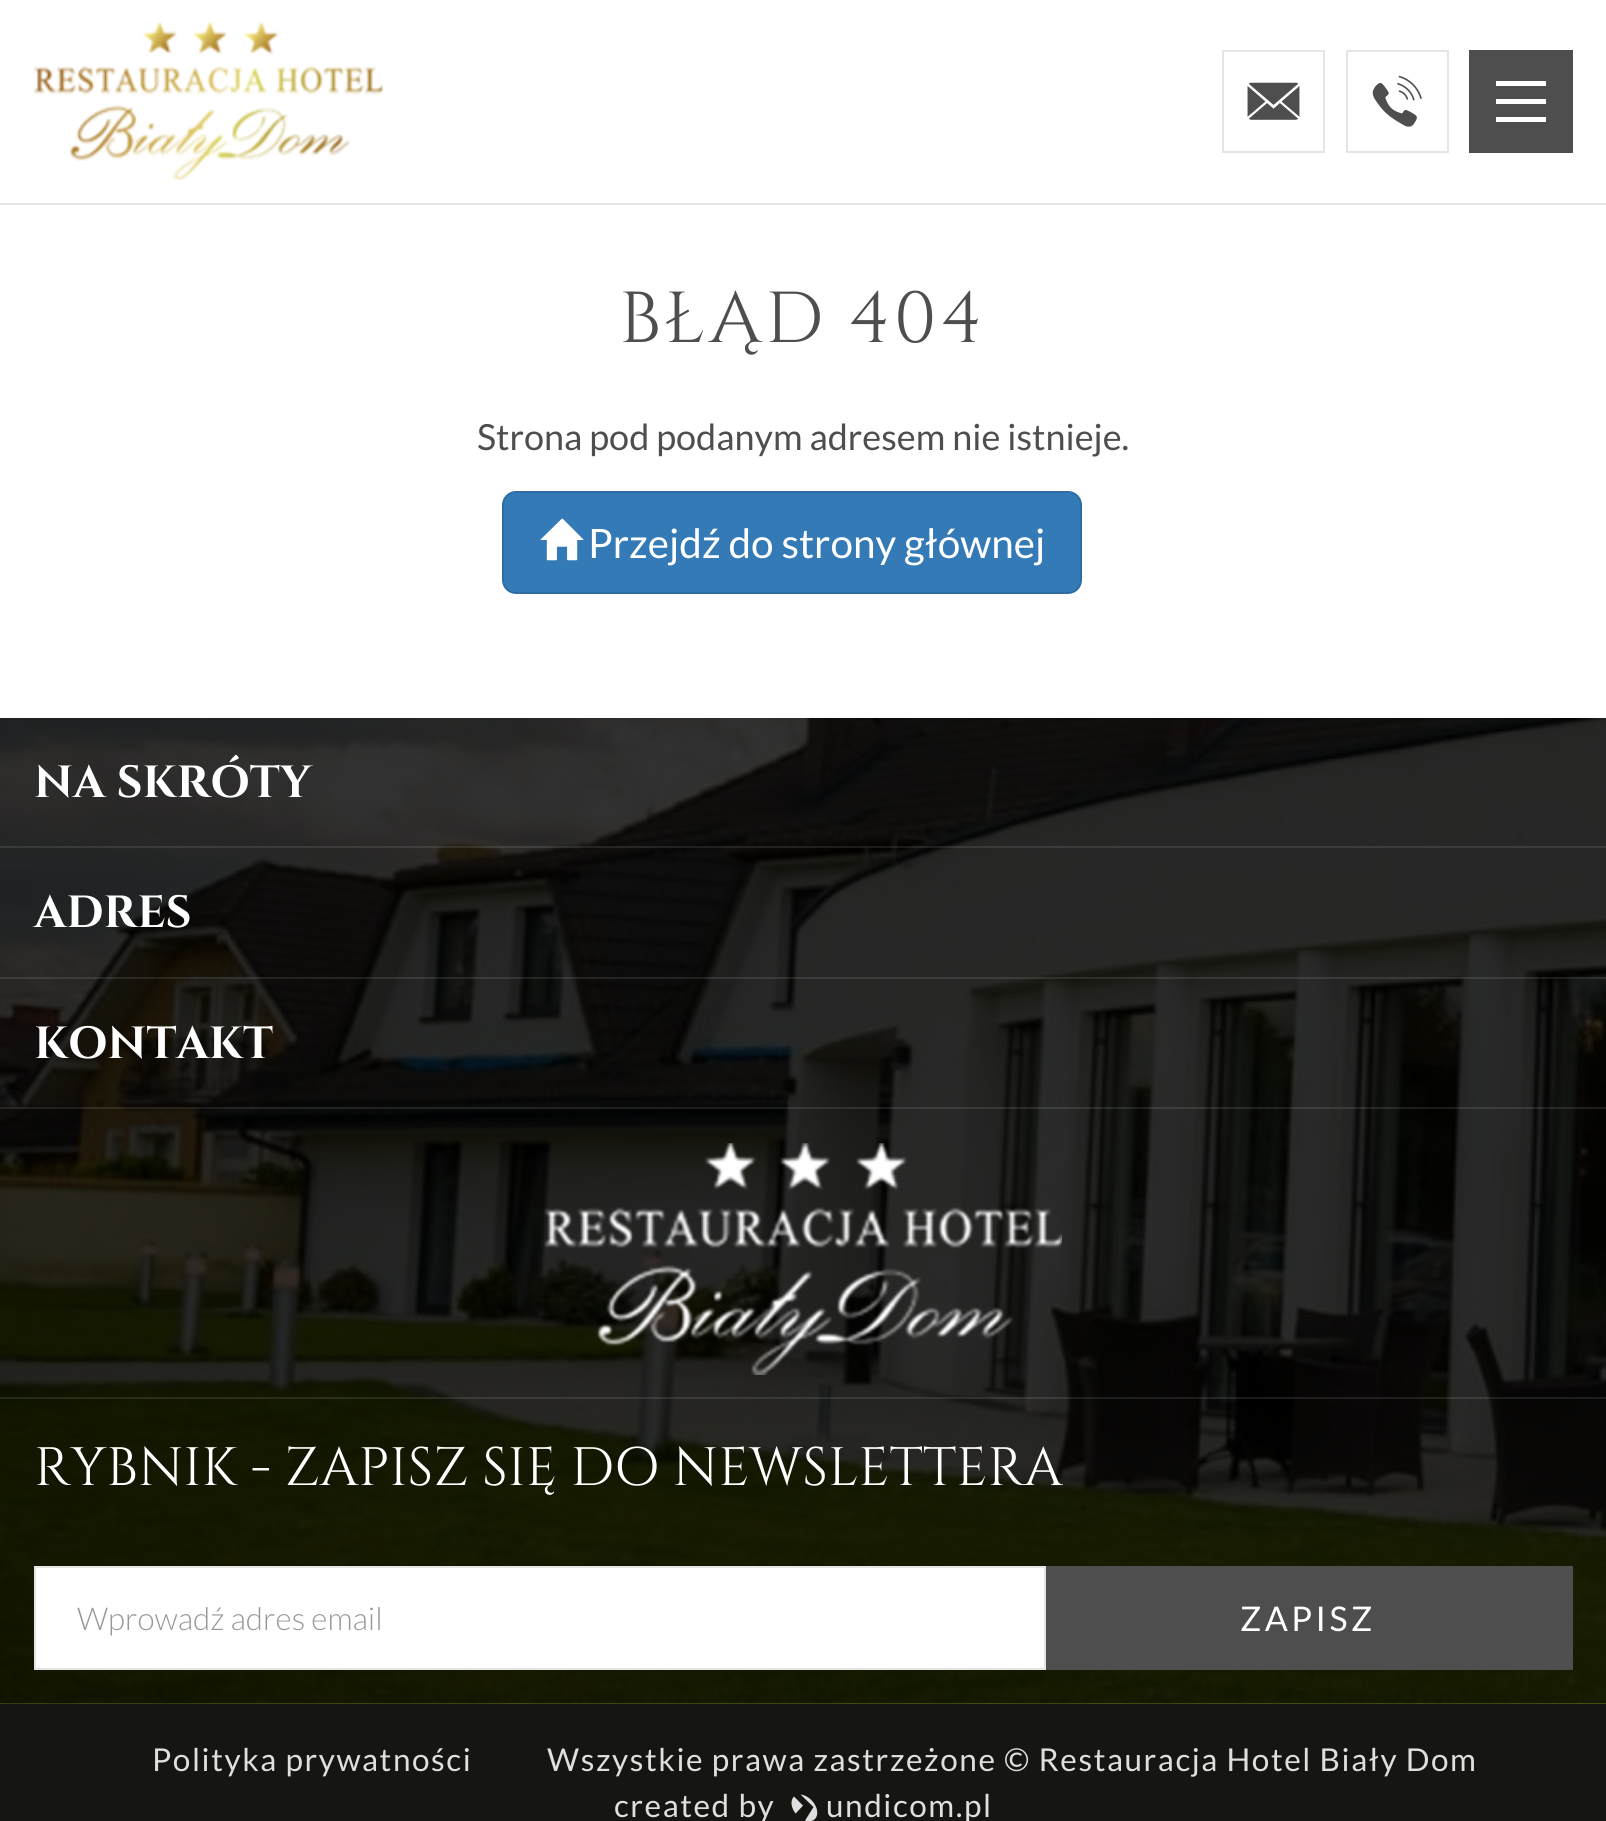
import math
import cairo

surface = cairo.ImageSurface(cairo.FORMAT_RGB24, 1606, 1821)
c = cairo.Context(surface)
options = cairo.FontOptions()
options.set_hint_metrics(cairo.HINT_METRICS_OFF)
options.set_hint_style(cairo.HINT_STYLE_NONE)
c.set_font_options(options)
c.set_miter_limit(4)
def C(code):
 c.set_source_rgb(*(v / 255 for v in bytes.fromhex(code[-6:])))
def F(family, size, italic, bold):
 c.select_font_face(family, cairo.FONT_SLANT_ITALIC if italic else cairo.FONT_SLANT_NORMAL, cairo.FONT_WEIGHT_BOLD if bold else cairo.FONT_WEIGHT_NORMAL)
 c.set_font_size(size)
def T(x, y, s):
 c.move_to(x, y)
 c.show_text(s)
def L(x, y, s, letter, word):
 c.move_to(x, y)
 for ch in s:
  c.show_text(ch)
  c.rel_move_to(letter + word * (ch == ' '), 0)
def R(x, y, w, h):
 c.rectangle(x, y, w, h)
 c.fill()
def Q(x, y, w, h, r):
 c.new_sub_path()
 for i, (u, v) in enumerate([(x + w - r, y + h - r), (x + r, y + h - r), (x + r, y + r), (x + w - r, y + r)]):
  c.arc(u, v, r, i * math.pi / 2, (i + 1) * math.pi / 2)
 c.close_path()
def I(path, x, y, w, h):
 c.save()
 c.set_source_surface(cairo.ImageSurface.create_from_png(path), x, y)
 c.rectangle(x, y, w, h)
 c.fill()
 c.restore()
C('ffffff')
c.paint()
C('e5e5e5')
R(0,203,1606,2)
I('1.png',33,22,350,158)
c.rectangle(1223,51,101,101)
c.stroke()
I('2.png',1247,82,53,38)
c.rectangle(1347,51,101,101)
c.stroke()
I('3.png',1372,75,50,52)
C('4e4e4e')
R(1469,50,104,103)
C('ffffff')
R(1496,81,50,5)
R(1496,99,50,5)
R(1496,117,50,5)
F('Cinzel',72,0,0)
C('4e4e4e')
L(619,342,'BŁĄD 404',3.5,0)
F('Lato',36,0,0)
T(477,450,'Strona pod podanym adresem nie istnieje.')
C('337ab7')
Q(503,492,578,101,13)
c.fill_preserve()
C('2e6da4')
c.stroke()
I('4.png',540,518,44,43)
F('Lato',40.5,0,0)
C('ffffff')
T(588,558,'Przejdź do strony głównej')
C('151512')
R(0,1703,1606,118)
I('5.png',0,718,1606,986)
c.set_source_rgba(1,1,1,0.1)
R(0,846,1606,2)
F('Cinzel',45,0,1)
C('ffffff')
T(34,797,'NA SKRÓTY')
c.set_source_rgba(1,1,1,0.1)
R(0,977,1606,2)
C('ffffff')
T(34,927,'ADRES')
c.set_source_rgba(1,1,1,0.1)
R(0,1107,1606,2)
C('ffffff')
T(34,1058,'KONTAKT')
c.set_source_rgba(1,1,1,0.1)
R(0,1397,1606,2)
I('6.png',544,1143,518,232)
F('Cinzel',54,0,0)
C('ffffff')
T(34,1485,'RYBNIK - ZAPISZ SIĘ DO NEWSLETTERA')
c.rectangle(35,1567,1010,102)
c.fill_preserve()
C('e5e5e5')
c.stroke()
F('Lato Light',31.5,0,0)
C('999999')
T(77,1630,'Wprowadź adres email')
C('4e4e4e')
R(1046,1566,527,104)
F('Lato',34,0,0)
C('ffffff')
L(1240,1631,'ZAPISZ',3.5,0)
F('Lato',31.5,0,0)
C('dfdfdf')
L(152,1771,'Polityka prywatności',1.57,0)
L(547,1771,'Wszystkie prawa zastrzeżone © Restauracja Hotel Biały Dom',1.57,0)
L(614,1817,'created by',1.57,0)
I('7.png',791,1794,27,27)
L(826,1817,'undicom.pl',1.57,0)
surface.write_to_png('o.png')
